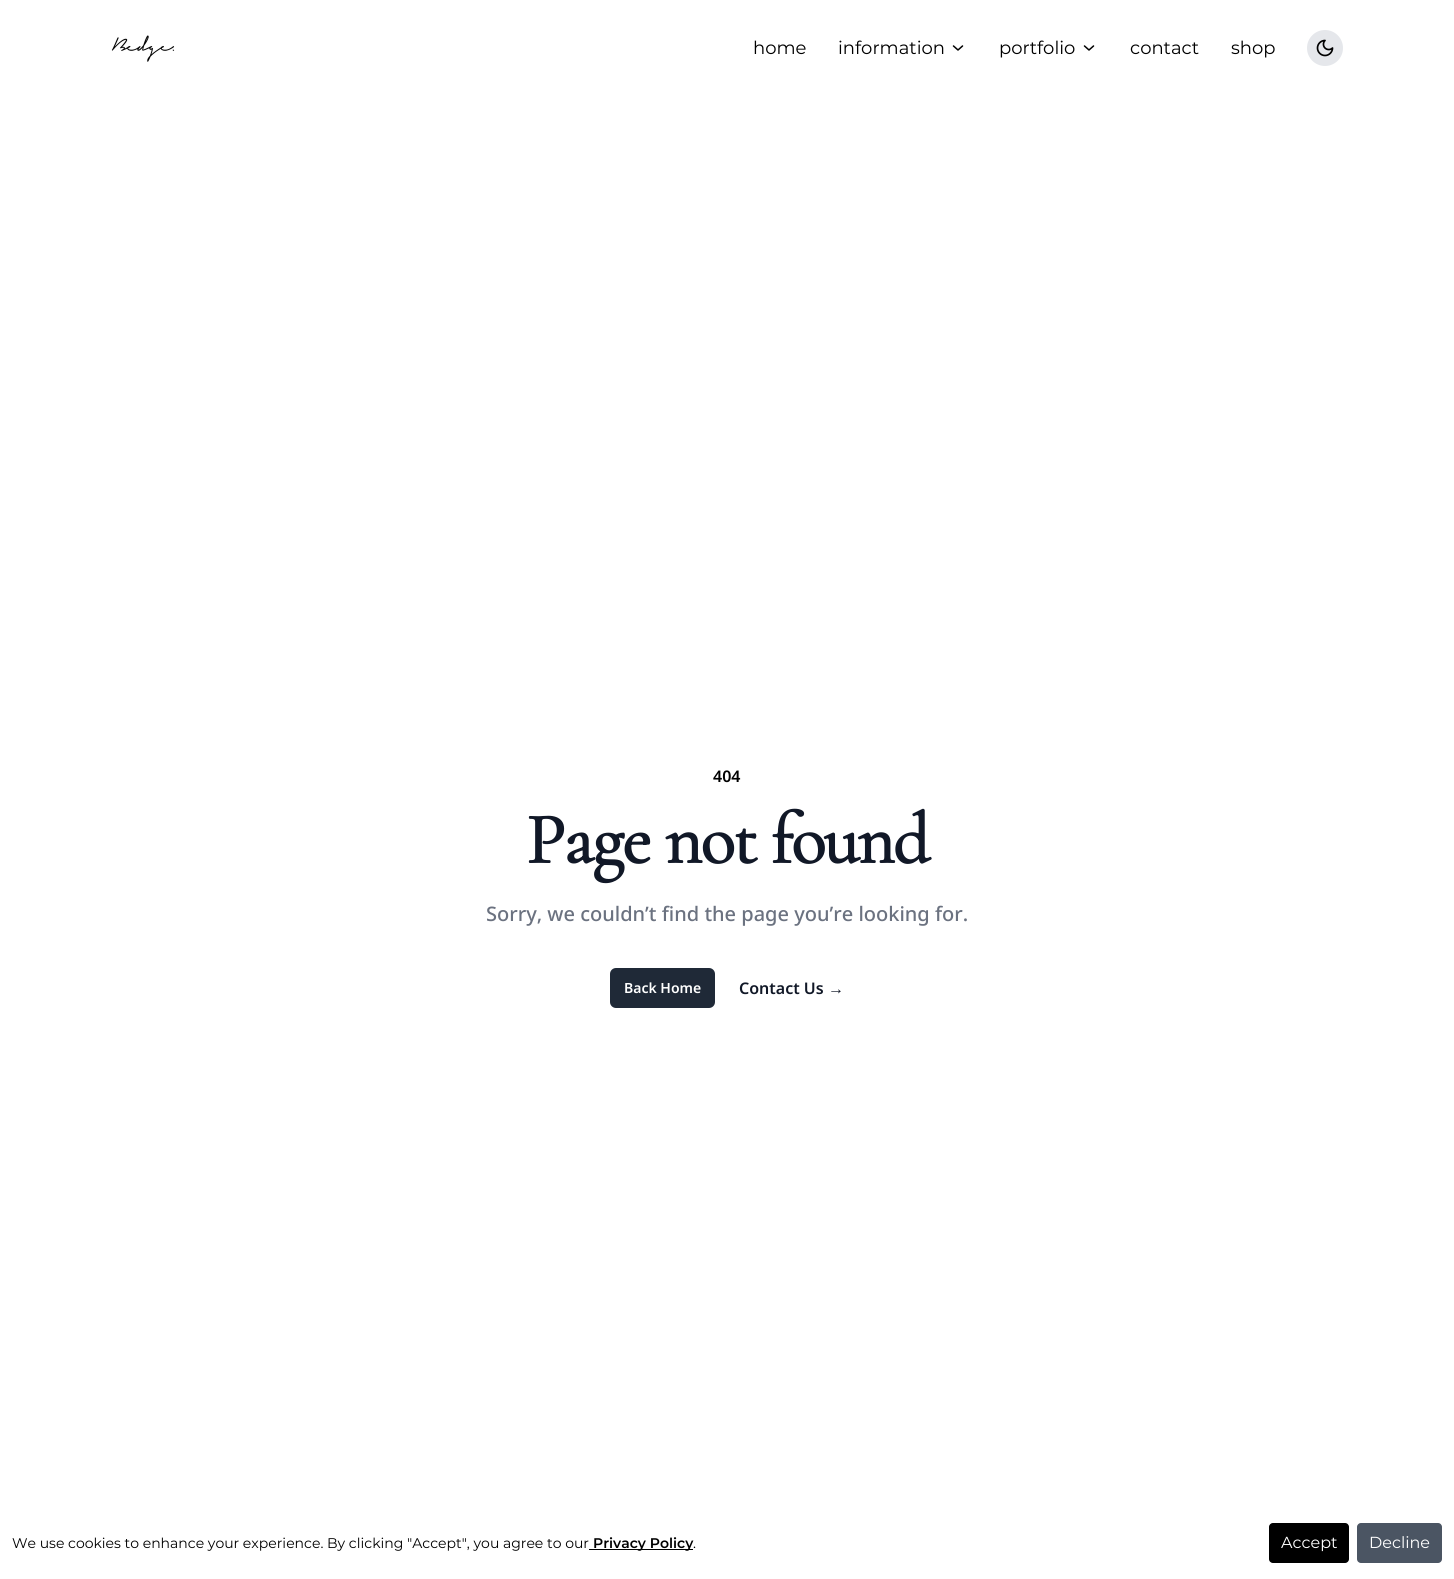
import math
import cairo

surface = cairo.ImageSurface(cairo.FORMAT_RGB24, 1454, 1579)
c = cairo.Context(surface)
options = cairo.FontOptions()
options.set_hint_metrics(cairo.HINT_METRICS_OFF)
options.set_hint_style(cairo.HINT_STYLE_NONE)
c.set_font_options(options)
c.set_miter_limit(4)
def C(code):
 c.set_source_rgb(*(v / 255 for v in bytes.fromhex(code[-6:])))
def F(family, size, italic, bold):
 c.select_font_face(family, cairo.FONT_SLANT_ITALIC if italic else cairo.FONT_SLANT_NORMAL, cairo.FONT_WEIGHT_BOLD if bold else cairo.FONT_WEIGHT_NORMAL)
 c.set_font_size(size)
def T(x, y, s):
 c.move_to(x, y)
 c.show_text(s)
def L(x, y, s, letter, word):
 c.move_to(x, y)
 for ch in s:
  c.show_text(ch)
  c.rel_move_to(letter + word * (ch == ' '), 0)
def R(x, y, w, h):
 c.rectangle(x, y, w, h)
 c.fill()
def Q(x, y, w, h, r):
 c.new_sub_path()
 for i, (u, v) in enumerate([(x + w - r, y + h - r), (x + r, y + h - r), (x + r, y + r), (x + w - r, y + r)]):
  c.arc(u, v, r, i * math.pi / 2, (i + 1) * math.pi / 2)
 c.close_path()
def I(path, x, y, w, h):
 c.save()
 c.set_source_surface(cairo.ImageSurface.create_from_png(path), x, y)
 c.rectangle(x, y, w, h)
 c.fill()
 c.restore()
C('ffffff')
c.paint()
I('1.png',111,35,64,27)
F('Montserrat',18,0,0)
C('000000')
T(753,54,'home')
T(838,54,'information')
c.new_path()
c.move_to(953.5,46)
c.line_to(958,50)
c.line_to(962.5,46)
c.set_line_width(1.5)
c.set_line_cap(cairo.LINE_CAP_ROUND)
c.set_line_join(cairo.LINE_JOIN_ROUND)
c.stroke()
T(999,54,'portfolio')
c.new_path()
c.move_to(1084.5,46)
c.line_to(1089,50)
c.line_to(1093.5,46)
c.stroke()
T(1130,54,'contact')
T(1231,54,'shop')
C('e5e7eb')
c.new_path()
c.arc(1325,48,18,0,2 * math.pi)
c.fill()
I('2.png',1316,39,18,18)
F('Noto Sans SemiBold',16,0,0)
C('000000')
T(713,782,'404')
F('Cormorant Garamond',72,0,1)
C('111827')
L(526,863,'Page not found',-1.75,0)
F('Noto Sans Medium',20,0,0)
C('6b7280')
T(486,921,'Sorry, we couldn’t find the page you’re looking for.')
C('1f2937')
Q(610,968,105,40,6)
c.fill()
F('Noto Sans SemiBold',14,0,0)
C('ffffff')
T(624,993,'Back Home')
F('Noto Sans SemiBold',16,0,0)
C('111827')
T(739,994,'Contact Us')
F('Liberation Sans',16,0,1)
T(828,994,'→')
F('Montserrat',14,0,0)
C('000000')
T(12,1548,'We use cookies to enhance your experience. By clicking "Accept", you agree to our')
R(589,1549,104,1)
F('Montserrat SemiBold',14,0,0)
T(593,1548,'Privacy Policy')
F('Montserrat',14,0,0)
T(693,1548,'.')
Q(1269,1523,80,40,4)
c.fill()
F('Montserrat',16,0,0)
C('ffffff')
T(1281,1548,'Accept')
C('4b5563')
Q(1357,1523,85,40,4)
c.fill()
C('ffffff')
T(1369,1548,'Decline')
surface.write_to_png('o.png')
